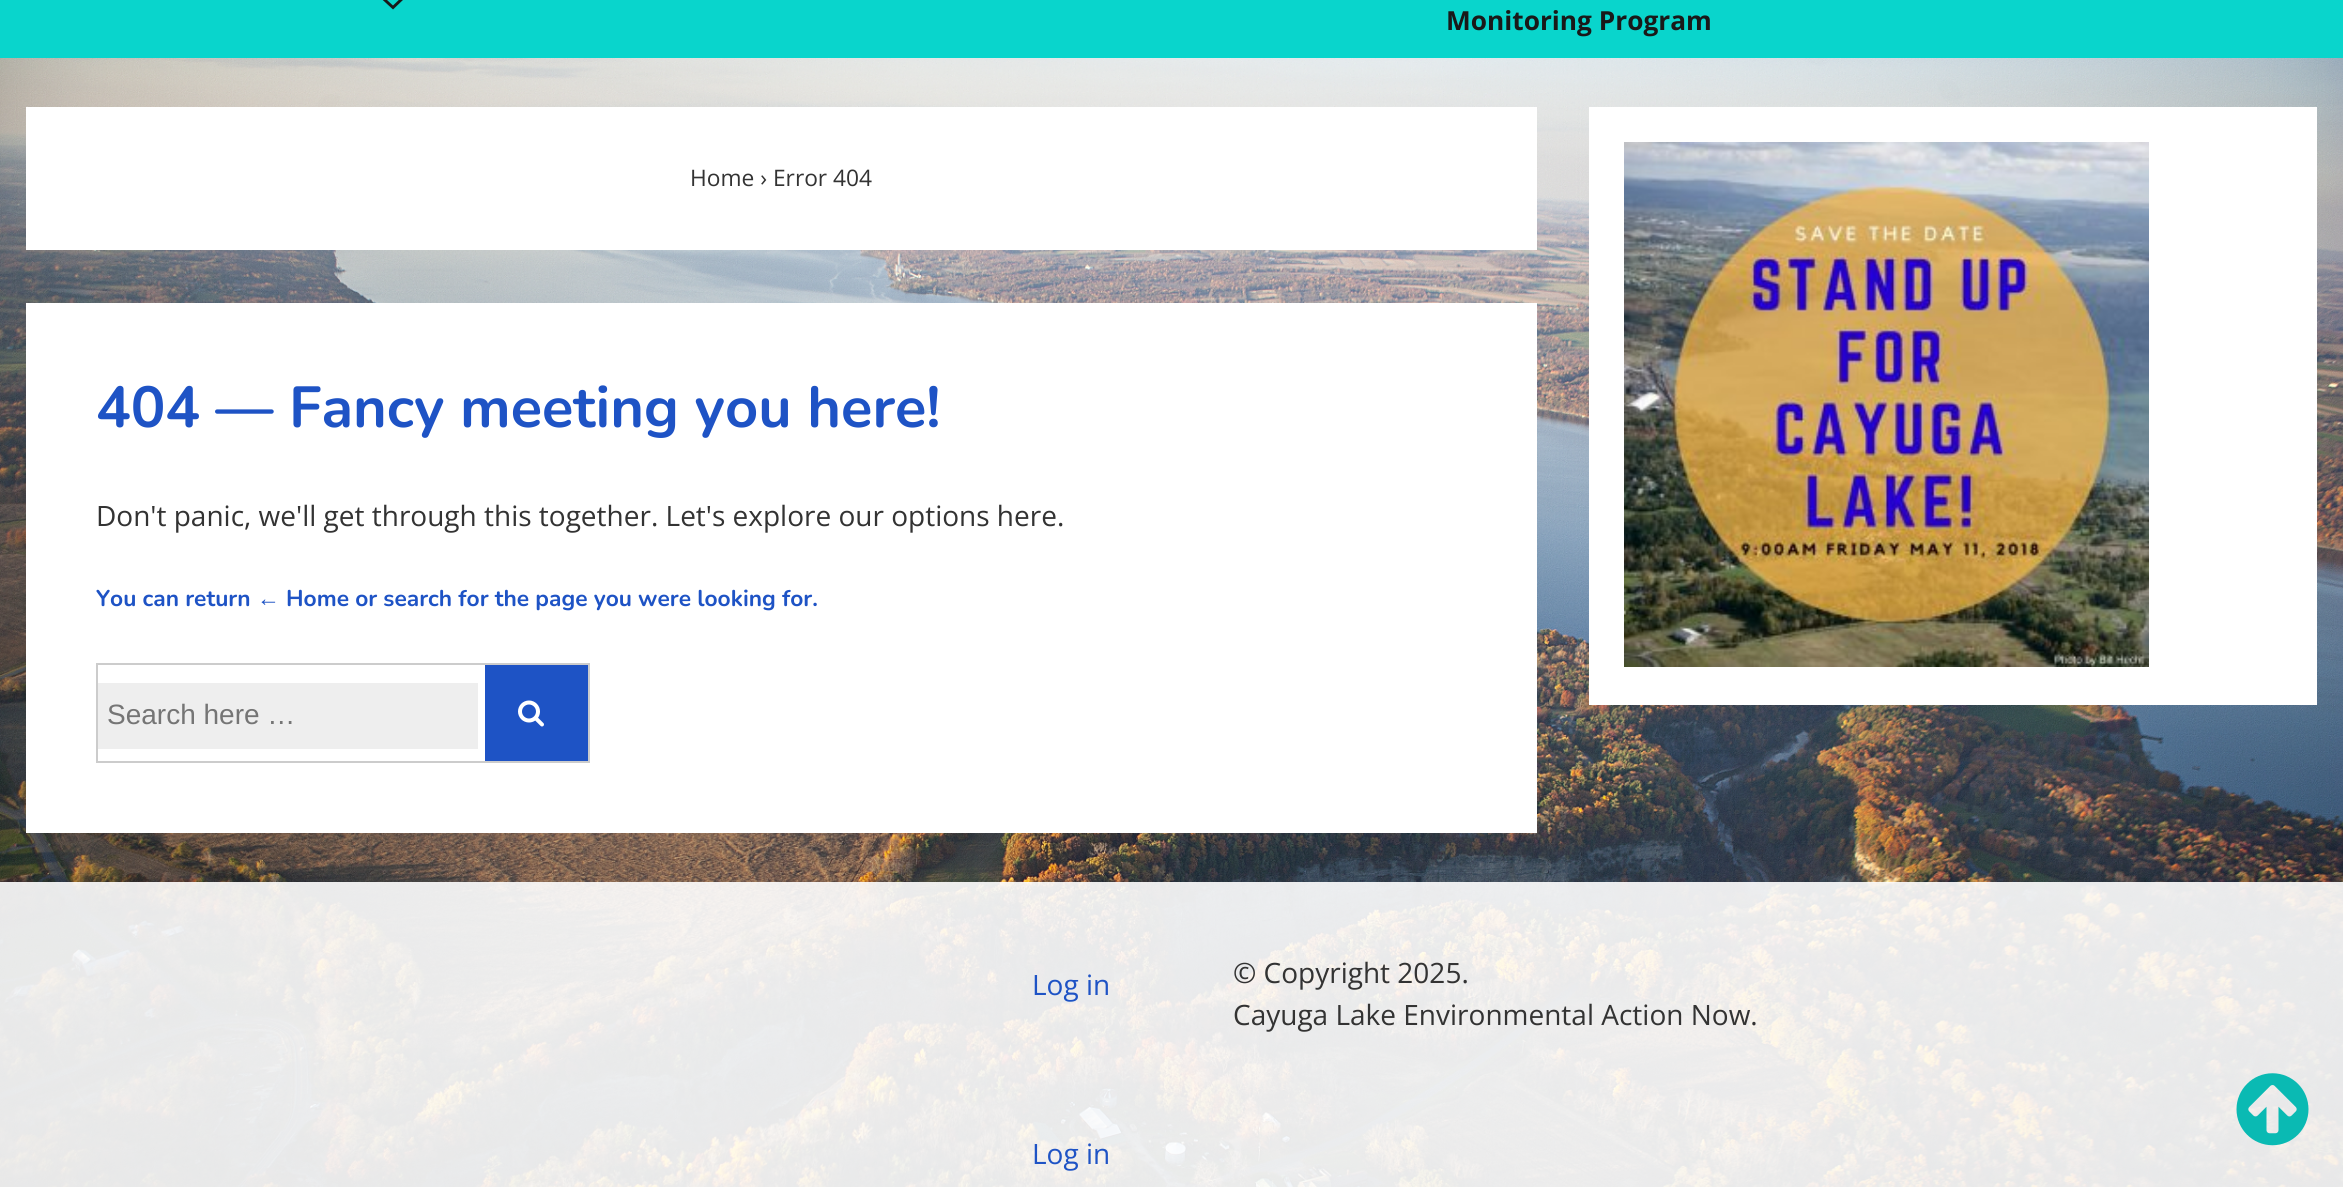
import math
import cairo

surface = cairo.ImageSurface(cairo.FORMAT_RGB24, 2343, 1187)
c = cairo.Context(surface)
options = cairo.FontOptions()
options.set_hint_metrics(cairo.HINT_METRICS_OFF)
options.set_hint_style(cairo.HINT_STYLE_NONE)
c.set_font_options(options)
c.set_miter_limit(4)
def C(code):
 c.set_source_rgb(*(v / 255 for v in bytes.fromhex(code[-6:])))
def F(family, size, italic, bold):
 c.select_font_face(family, cairo.FONT_SLANT_ITALIC if italic else cairo.FONT_SLANT_NORMAL, cairo.FONT_WEIGHT_BOLD if bold else cairo.FONT_WEIGHT_NORMAL)
 c.set_font_size(size)
def T(x, y, s):
 c.move_to(x, y)
 c.show_text(s)
def R(x, y, w, h):
 c.rectangle(x, y, w, h)
 c.fill()
def I(path, x, y, w, h):
 c.save()
 c.set_source_surface(cairo.ImageSurface.create_from_png(path), x, y)
 c.rectangle(x, y, w, h)
 c.fill()
 c.restore()
C('ffffff')
c.paint()
I('1.png',0,58,2343,1129)
C('09d5cc')
R(0,0,2343,58)
c.new_path()
c.move_to(380.5,-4)
c.line_to(393,7.5)
c.line_to(405,-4)
C('191919')
c.set_line_width(2.9)
c.set_line_cap(cairo.LINE_CAP_ROUND)
c.stroke()
F('Open Sans',26.25,0,1)
T(1446,30,'Monitoring Program')
C('ffffff')
R(26,107,1511,143)
F('Open Sans',22.75,0,0)
C('333333')
T(690,186,'Home › Error 404')
C('ffffff')
R(26,303,1511,530)
F('Nunito',57.75,0,1)
C('1e53c5')
T(96,427,'404 — Fancy meeting you here!')
F('Open Sans',28,0,0)
C('333333')
T(96,526,'Don\'t panic, we\'ll get through this together. Let\'s explore our options here.')
F('Nunito',22.75,0,1)
C('1e53c5')
T(96,606,'You can return')
F('Liberation Sans',22.75,0,1)
T(257,606,'←')
F('Nunito',22.75,0,1)
T(286,606,'Home or search for the page you were looking for.')
c.rectangle(97,664,492,98)
C('cccccc')
c.set_line_width(2)
c.set_line_cap(cairo.LINE_CAP_BUTT)
c.stroke()
C('eeeeee')
R(98,683,380,66)
F('Liberation Sans',28,0,0)
C('757575')
T(107,724,'Search here …')
C('1e53c5')
R(485,665,103,96)
I('2.png',518,700,26,27)
C('ffffff')
R(1589,107,728,598)
I('3.png',1624,142,525,525)
c.set_source_rgba(1,1,1,0.9)
R(0,882,2343,305)
F('Open Sans',28,0,0)
C('1e53c5')
T(1032,995,'Log in')
T(1032,1164,'Log in')
C('333333')
T(1233,983,'© Copyright 2025.')
T(1233,1025,'Cayuga Lake Environmental Action Now.')
I('4.png',2236,1073,73,73)
surface.write_to_png('o.png')
